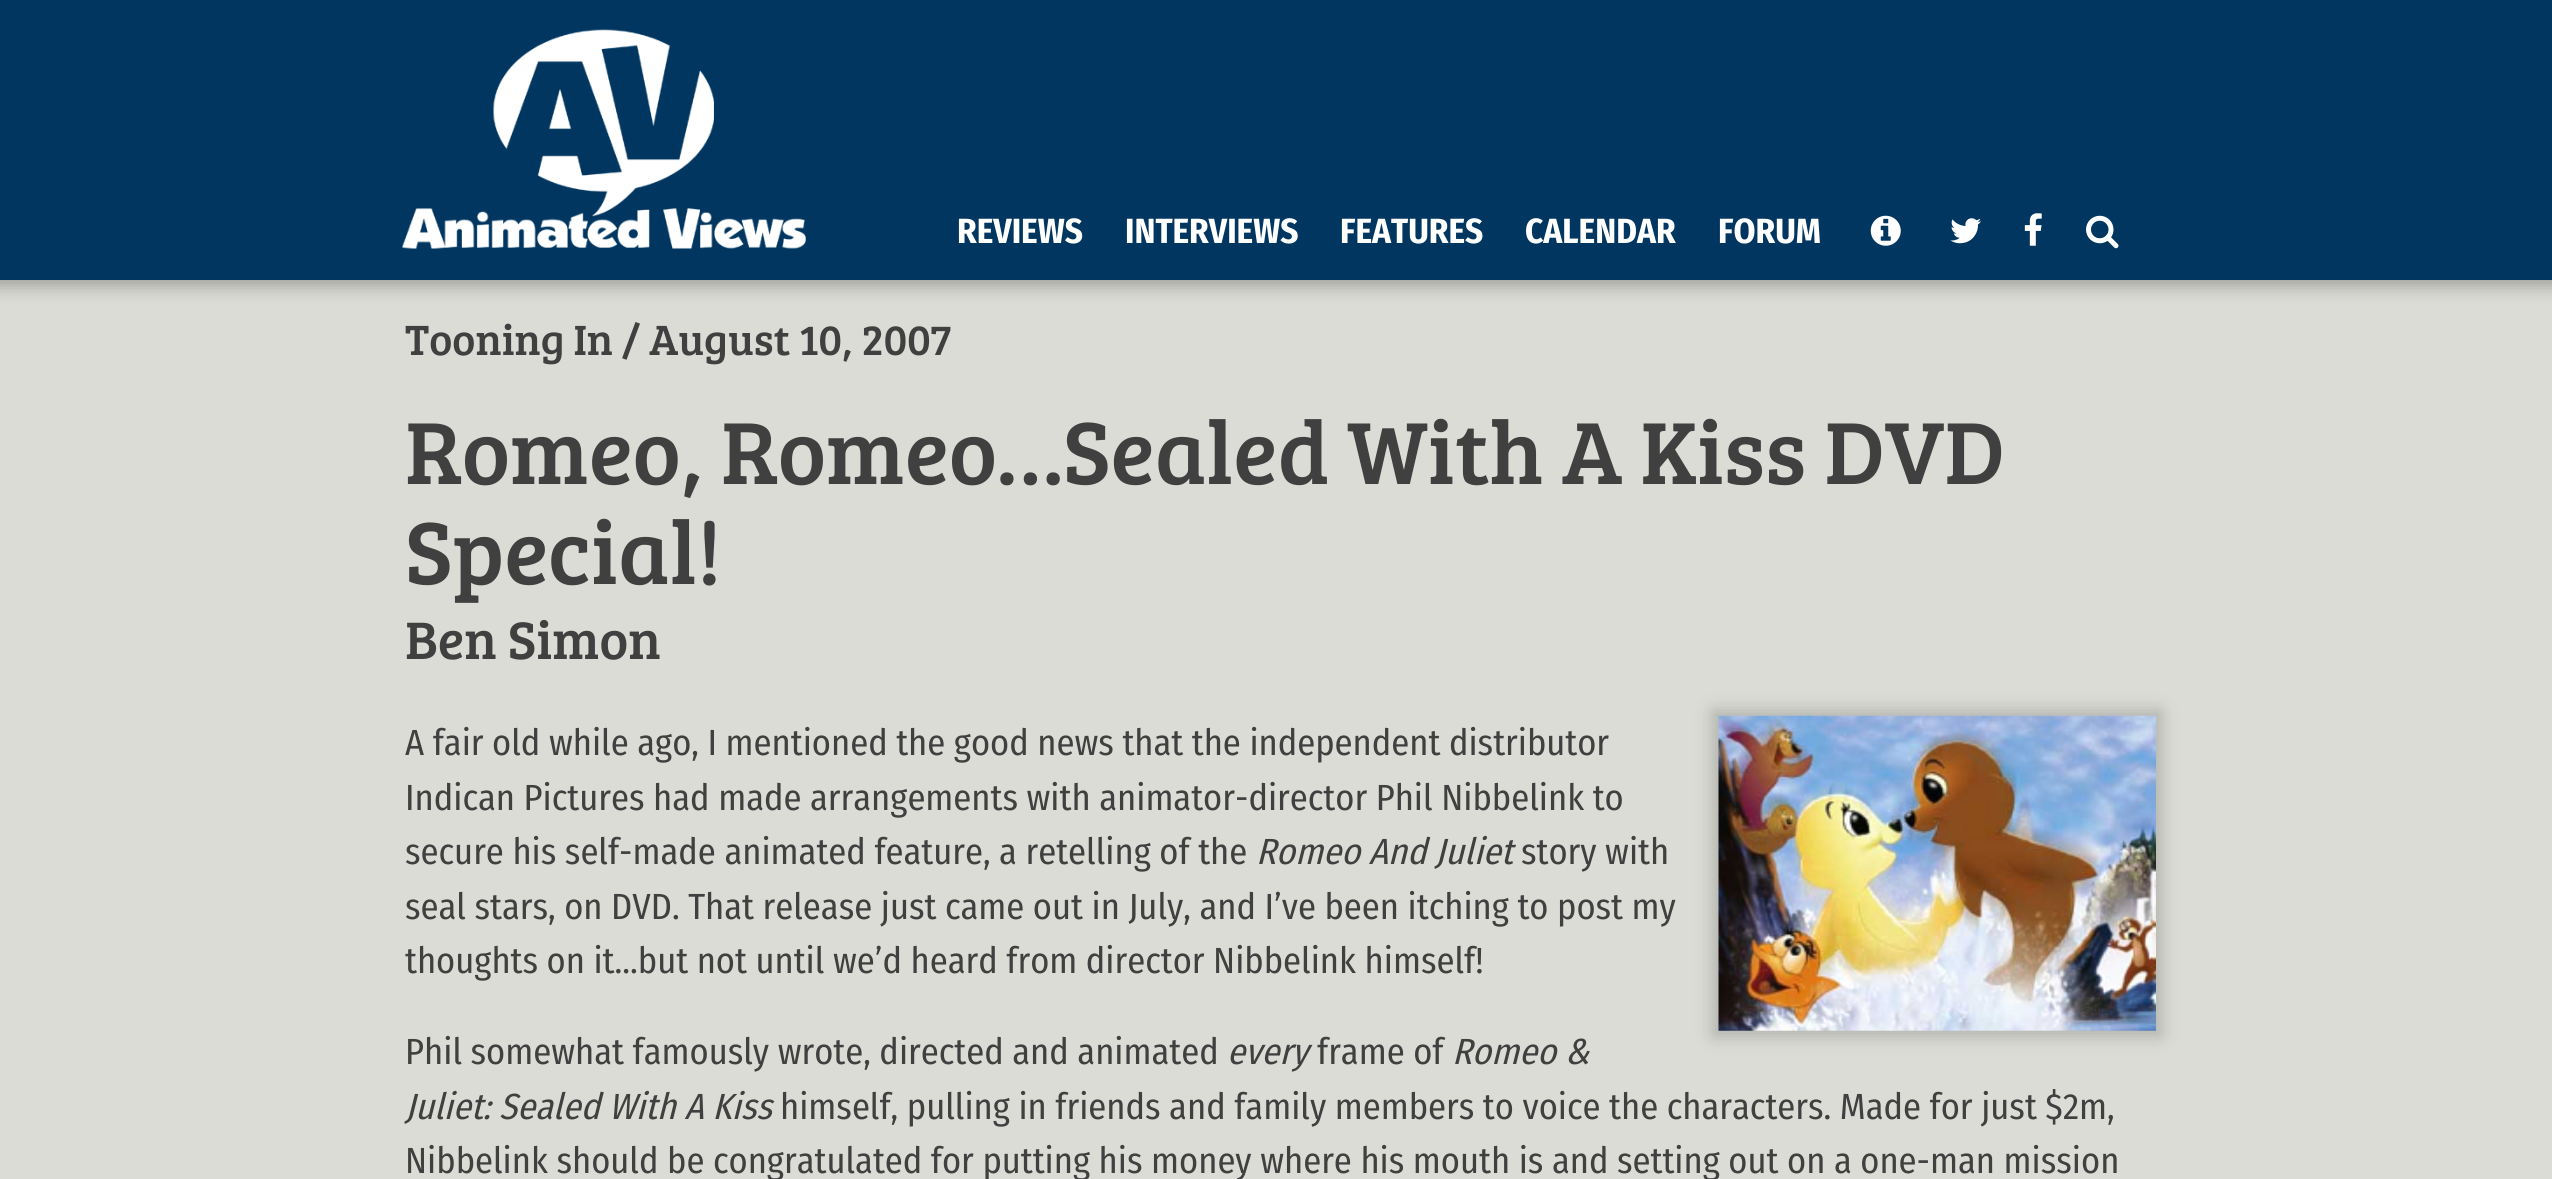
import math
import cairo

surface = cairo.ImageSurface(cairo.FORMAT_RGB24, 2552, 1179)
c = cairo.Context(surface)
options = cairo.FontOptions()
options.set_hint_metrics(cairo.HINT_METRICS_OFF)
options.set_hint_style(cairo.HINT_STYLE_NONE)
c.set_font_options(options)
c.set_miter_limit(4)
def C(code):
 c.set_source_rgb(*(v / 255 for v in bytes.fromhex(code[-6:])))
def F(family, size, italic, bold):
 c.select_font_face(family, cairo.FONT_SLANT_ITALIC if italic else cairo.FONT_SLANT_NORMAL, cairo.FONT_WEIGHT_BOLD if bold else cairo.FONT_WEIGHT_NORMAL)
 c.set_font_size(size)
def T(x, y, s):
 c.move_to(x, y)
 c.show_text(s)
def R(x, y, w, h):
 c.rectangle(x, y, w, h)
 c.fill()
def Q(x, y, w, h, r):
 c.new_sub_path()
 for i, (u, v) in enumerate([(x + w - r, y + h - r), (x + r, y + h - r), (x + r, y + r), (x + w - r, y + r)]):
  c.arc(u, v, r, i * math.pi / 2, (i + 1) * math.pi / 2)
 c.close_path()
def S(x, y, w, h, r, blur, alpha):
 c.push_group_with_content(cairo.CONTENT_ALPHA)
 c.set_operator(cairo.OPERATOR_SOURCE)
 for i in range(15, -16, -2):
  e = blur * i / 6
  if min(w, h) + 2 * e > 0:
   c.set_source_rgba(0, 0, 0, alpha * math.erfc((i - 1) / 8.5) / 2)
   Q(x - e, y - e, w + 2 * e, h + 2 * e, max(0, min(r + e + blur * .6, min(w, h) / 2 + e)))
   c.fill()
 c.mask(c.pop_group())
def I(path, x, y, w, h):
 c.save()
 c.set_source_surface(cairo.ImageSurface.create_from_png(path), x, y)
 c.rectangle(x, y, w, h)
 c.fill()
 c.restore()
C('dcdcd6')
c.paint()
C('000000')
S(-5,-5,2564,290,0,9,.3)
C('00365f')
R(0,0,2552,280)
I('1.png',402,29,404,220)
F('Fira Sans Condensed',35,0,1)
C('ffffff')
T(957,243,'REVIEWS')
T(1125,243,'INTERVIEWS')
T(1340,243,'FEATURES')
T(1525,243,'CALENDAR')
T(1718,243,'FORUM')
I('2.png',1870,215,31,31)
I('3.png',1950,218,31,26)
I('4.png',2024,213,18,33)
I('5.png',2086,215,33,34)
F('Bree Serif',43.75,0,0)
C('404040')
T(405,355,'Tooning In / August 10, 2007')
F('Bree Serif',91,0,0)
T(405,484,'Romeo, Romeo…Sealed With A Kiss DVD')
T(405,584,'Special!')
F('Bree Serif',54.5,0,0)
T(405,659,'Ben Simon')
F('Fira Sans Condensed',36.4,0,0)
T(405,755,'A fair old while ago, I mentioned the good news that the independent distributor')
C('000000')
S(1713,711,448,325,0,9,.2)
I('6.png',1718,715,438,316)
C('404040')
T(405,810,'Indican Pictures had made arrangements with animator-director Phil Nibbelink to')
T(405,864,'secure his self-made animated feature, a retelling of the')
F('Fira Sans Condensed',36.4,1,0)
T(1256,864,'Romeo And Juliet')
F('Fira Sans Condensed',36.4,0,0)
T(1521,864,'story with')
T(405,919,'seal stars, on DVD. That release just came out in July, and I’ve been itching to post my')
T(405,973,'thoughts on it…but not until we’d heard from director Nibbelink himself!')
T(405,1064,'Phil somewhat famously wrote, directed and animated')
F('Fira Sans Condensed',36.4,1,0)
T(1227,1064,'every')
F('Fira Sans Condensed',36.4,0,0)
T(1317,1064,'frame of')
F('Fira Sans Condensed',36.4,1,0)
T(1452,1064,'Romeo &')
T(405,1119,'Juliet: Sealed With A Kiss')
F('Fira Sans Condensed',36.4,0,0)
T(780,1119,'himself, pulling in friends and family members to voice the characters. Made for just $2m,')
T(405,1173,'Nibbelink should be congratulated for putting his money where his mouth is and setting out on a one-man mission')
surface.write_to_png('o.png')
